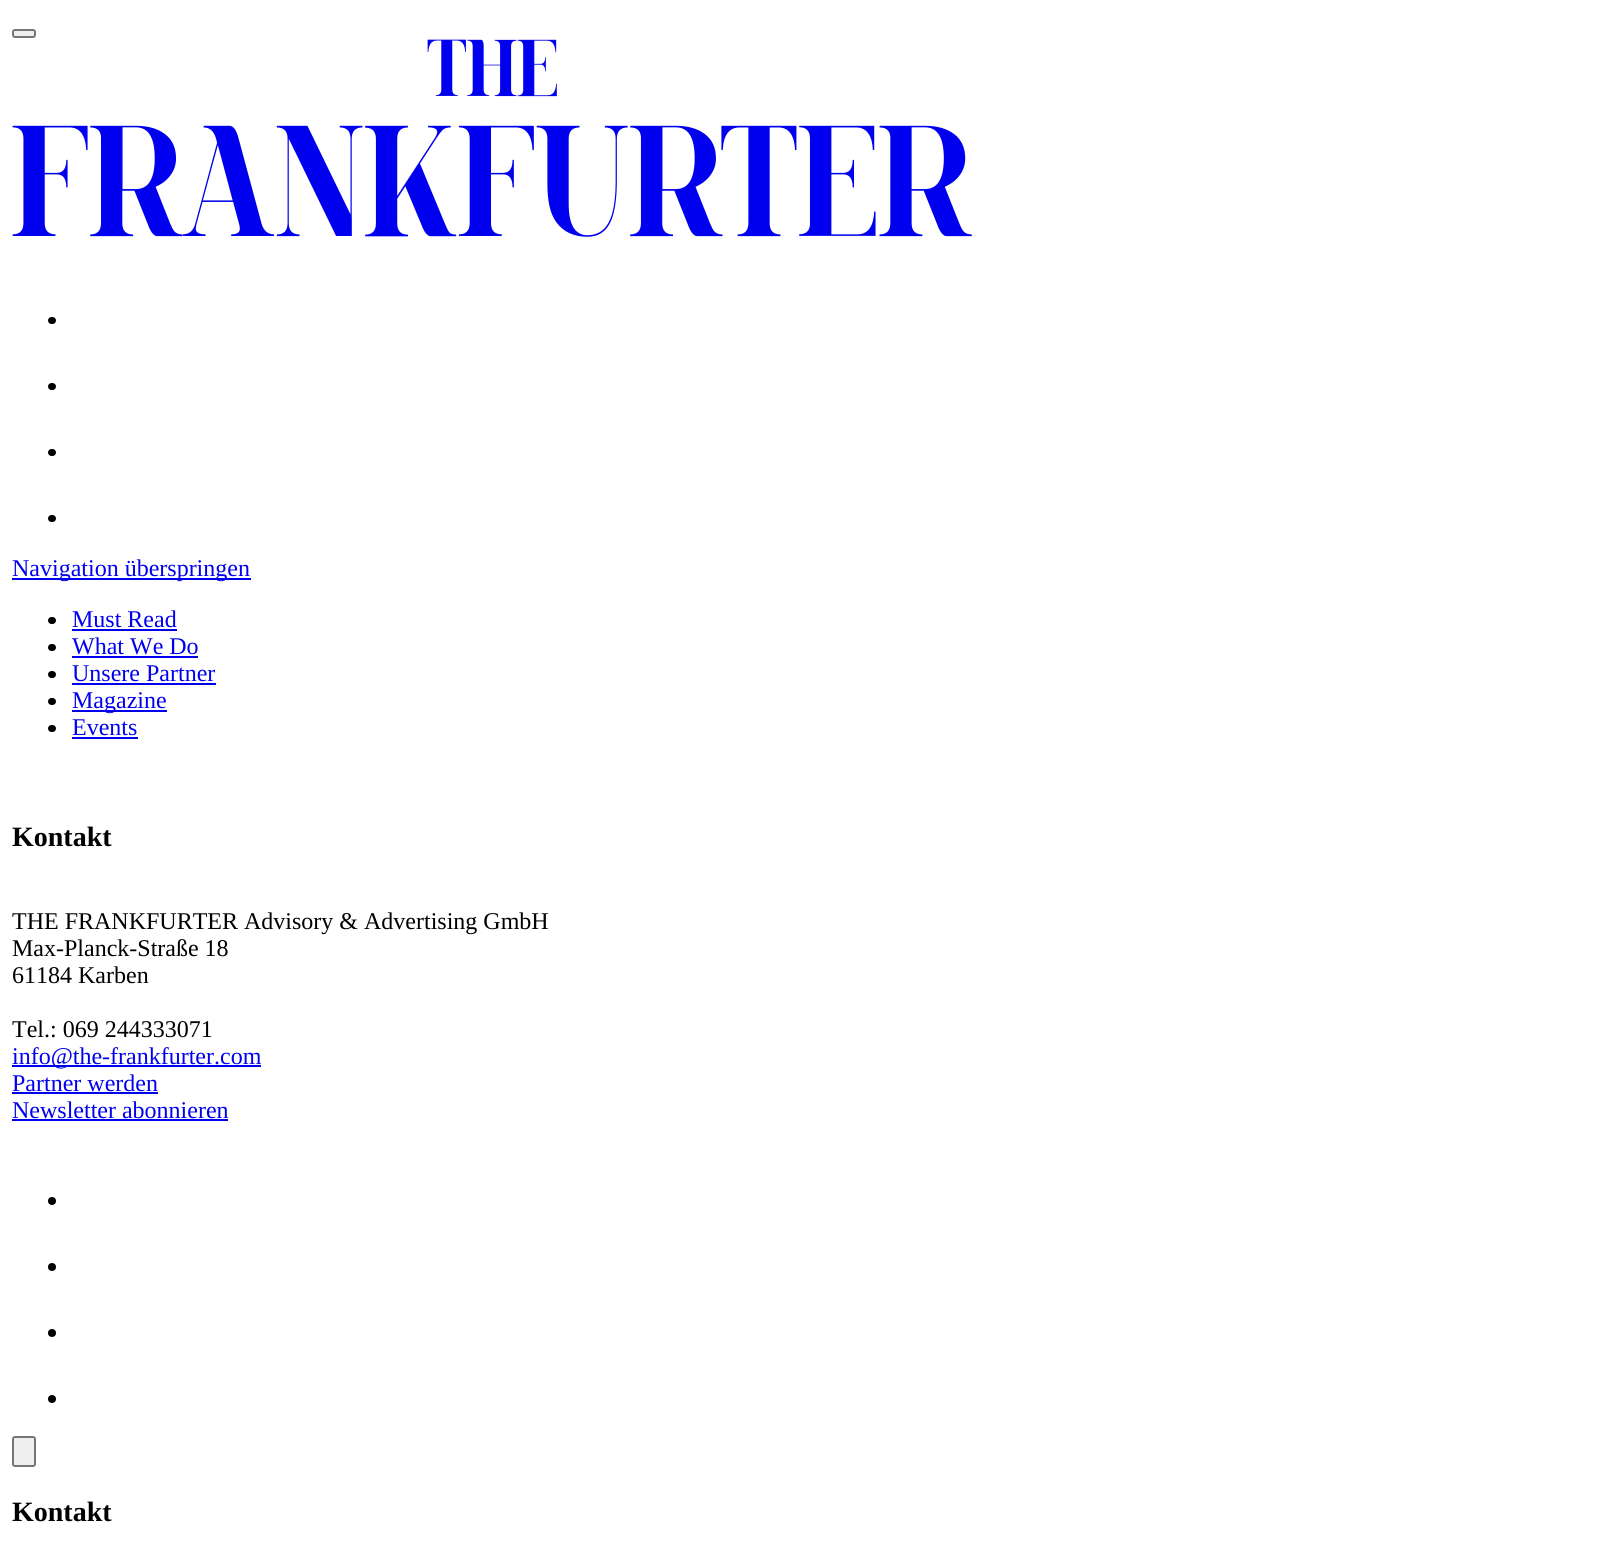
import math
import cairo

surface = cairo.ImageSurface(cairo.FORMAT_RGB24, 1614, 1541)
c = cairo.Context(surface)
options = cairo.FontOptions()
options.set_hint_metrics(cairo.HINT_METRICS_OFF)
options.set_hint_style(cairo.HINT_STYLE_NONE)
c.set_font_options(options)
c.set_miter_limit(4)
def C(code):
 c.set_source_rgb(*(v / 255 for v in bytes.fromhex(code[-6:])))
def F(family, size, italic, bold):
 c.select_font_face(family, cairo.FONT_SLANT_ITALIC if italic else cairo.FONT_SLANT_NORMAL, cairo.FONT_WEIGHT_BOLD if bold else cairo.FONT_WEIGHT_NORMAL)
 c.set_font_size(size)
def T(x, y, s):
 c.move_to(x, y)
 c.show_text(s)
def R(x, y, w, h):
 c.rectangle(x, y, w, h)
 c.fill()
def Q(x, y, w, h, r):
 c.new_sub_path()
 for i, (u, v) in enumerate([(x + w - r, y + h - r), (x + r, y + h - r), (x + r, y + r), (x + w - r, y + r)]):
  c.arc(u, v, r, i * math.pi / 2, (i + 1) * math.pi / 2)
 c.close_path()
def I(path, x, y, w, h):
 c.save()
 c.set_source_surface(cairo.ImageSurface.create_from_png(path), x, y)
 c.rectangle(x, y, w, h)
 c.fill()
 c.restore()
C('ffffff')
c.paint()
C('efefef')
Q(13,30,22,7,2)
c.fill_preserve()
C('767676')
c.stroke()
I('1.png',12,39,960,198)
C('000000')
Q(48,317,8,7,3.5)
c.fill()
Q(48,383,8,7,3.5)
c.fill()
Q(48,449,8,7,3.5)
c.fill()
Q(48,515,8,7,3.5)
c.fill()
C('0000ee')
R(12,578,239,2)
F('Liberation Serif',24,0,0)
T(12,576,'Navigation überspringen')
C('000000')
Q(48,617,8,7,3.5)
c.fill()
C('0000ee')
T(72,627,'Must Read')
R(72,629,105,2)
C('000000')
Q(48,644,8,7,3.5)
c.fill()
C('0000ee')
T(72,654,'What We Do')
R(72,656,126,2)
C('000000')
Q(48,671,8,7,3.5)
c.fill()
C('0000ee')
T(72,681,'Unsere Partner')
R(72,683,144,2)
C('000000')
Q(48,698,8,7,3.5)
c.fill()
C('0000ee')
R(72,710,95,2)
T(72,708,'Magazine')
C('000000')
Q(48,725,8,7,3.5)
c.fill()
C('0000ee')
T(72,735,'Events')
R(72,737,66,2)
F('Liberation Serif',28,0,1)
C('000000')
T(12,846,'Kontakt')
F('Liberation Serif',24,0,0)
T(12,929,'THE FRANKFURTER Advisory & Advertising GmbH')
T(12,956,'Max-Planck-Straße 18')
T(12,983,'61184 Karben')
T(12,1037,'Tel.: 069 244333071')
C('0000ee')
R(12,1065,249,2)
T(12,1064,'info@the-frankfurter.com')
T(12,1091,'Partner werden')
R(12,1092,146,2)
T(12,1118,'Newsletter abonnieren')
R(12,1119,216,2)
C('000000')
c.new_path()
c.arc(52,1201,4,0,2 * math.pi)
c.fill()
c.arc(52,1267,4,0,2 * math.pi)
c.fill()
c.arc(52,1333,4,0,2 * math.pi)
c.fill()
c.arc(52,1399,4,0,2 * math.pi)
c.fill()
C('efefef')
Q(13,1437,22,29,2)
c.fill_preserve()
C('767676')
c.stroke()
F('Liberation Serif',28,0,1)
C('000000')
T(12,1521,'Kontakt')
surface.write_to_png('o.png')
